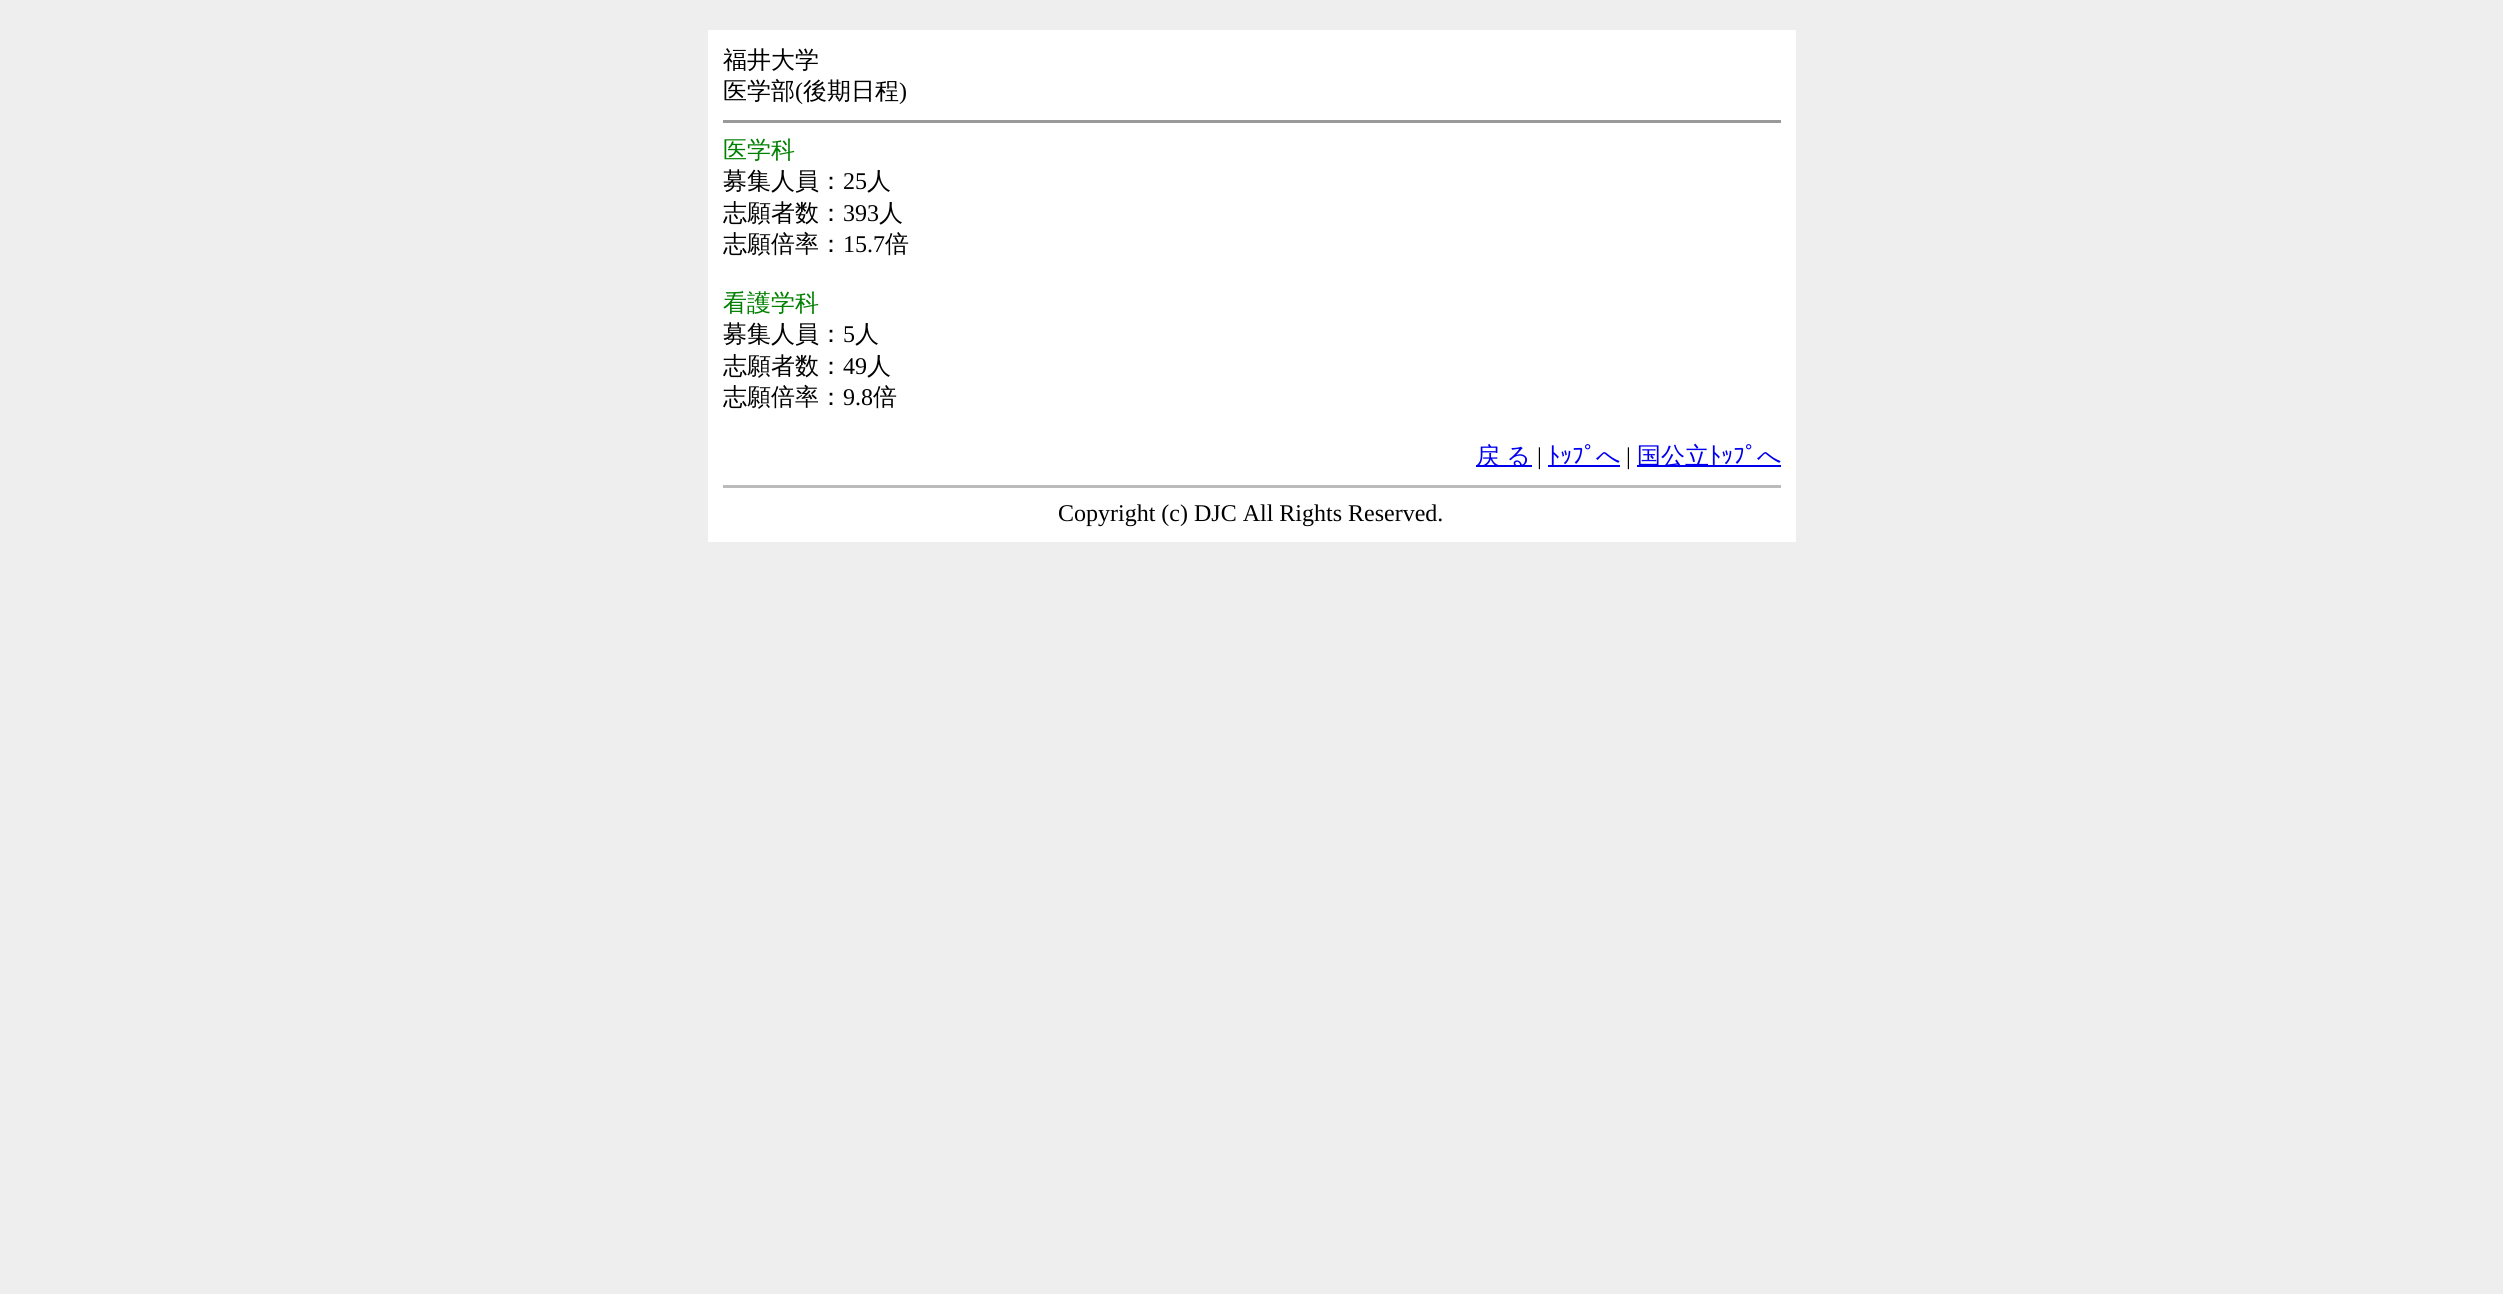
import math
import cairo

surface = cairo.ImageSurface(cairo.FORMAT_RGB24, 2503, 1294)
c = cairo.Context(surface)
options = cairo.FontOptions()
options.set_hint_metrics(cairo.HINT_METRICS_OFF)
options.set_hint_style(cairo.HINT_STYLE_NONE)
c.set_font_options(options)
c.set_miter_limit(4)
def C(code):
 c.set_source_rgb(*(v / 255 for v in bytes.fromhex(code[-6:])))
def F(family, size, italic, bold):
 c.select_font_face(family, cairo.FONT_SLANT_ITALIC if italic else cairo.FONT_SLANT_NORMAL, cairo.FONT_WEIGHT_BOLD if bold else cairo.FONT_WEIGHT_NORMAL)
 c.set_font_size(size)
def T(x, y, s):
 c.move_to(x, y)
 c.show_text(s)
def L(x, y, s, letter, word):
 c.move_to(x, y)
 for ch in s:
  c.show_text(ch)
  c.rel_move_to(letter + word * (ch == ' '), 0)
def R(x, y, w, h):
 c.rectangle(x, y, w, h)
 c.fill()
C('eeeeee')
c.paint()
C('ffffff')
R(708,30,1088,512)
F('WenQuanYi Zen Hei Medium',24,0,0)
C('000000')
T(723,68,'福井大学')
T(723,99,'医学部')
F('Liberation Serif',24,0,0)
T(795,99,'(')
F('WenQuanYi Zen Hei Medium',24,0,0)
T(803,99,'後期日程')
F('Liberation Serif',24,0,0)
T(899,99,')')
C('999999')
R(723,120,1058,3)
F('WenQuanYi Zen Hei Medium',24,0,0)
C('008000')
T(723,158,'医学科')
C('000000')
T(723,189,'募集人員：')
F('Liberation Serif',24,0,0)
T(843,189,'25')
F('WenQuanYi Zen Hei Medium',24,0,0)
T(867,189,'人')
T(723,221,'志願者数：')
F('Liberation Serif',24,0,0)
T(843,221,'393')
F('WenQuanYi Zen Hei Medium',24,0,0)
T(879,221,'人')
T(723,252,'志願倍率：')
F('Liberation Serif',24,0,0)
T(843,252,'15.7')
F('WenQuanYi Zen Hei Medium',24,0,0)
T(885,252,'倍')
C('008000')
T(723,311,'看護学科')
C('000000')
T(723,342,'募集人員：')
F('Liberation Serif',24,0,0)
T(843,342,'5')
F('WenQuanYi Zen Hei Medium',24,0,0)
T(855,342,'人')
T(723,374,'志願者数：')
F('Liberation Serif',24,0,0)
T(843,374,'49')
F('WenQuanYi Zen Hei Medium',24,0,0)
T(867,374,'人')
T(723,405,'志願倍率：')
F('Liberation Serif',24,0,0)
T(843,405,'9.8')
F('WenQuanYi Zen Hei Medium',24,0,0)
T(873,405,'倍')
C('0000ee')
R(1476,465,56,2)
L(1476,464,'戻 る',0,-1)
F('Liberation Serif',24,0,0)
C('000000')
T(1537,464,'|')
F('IPAPGothic',24,0,0)
C('0000ee')
T(1548,464,'ﾄｯﾌﾟ')
F('WenQuanYi Zen Hei Medium',24,0,0)
T(1596,464,'へ')
R(1548,465,72,2)
F('Liberation Serif',24,0,0)
C('000000')
T(1626,464,'|')
C('0000ee')
R(1637,465,144,2)
F('WenQuanYi Zen Hei Medium',24,0,0)
T(1637,464,'国公立')
F('IPAPGothic',24,0,0)
T(1709,464,'ﾄｯﾌﾟ')
F('WenQuanYi Zen Hei Medium',24,0,0)
T(1757,464,'へ')
C('bbbbbb')
R(723,485,1058,3)
F('Liberation Serif',24,0,0)
C('000000')
T(1058,521,'Copyright (c) DJC All Rights Reserved.')
surface.write_to_png('o.png')
